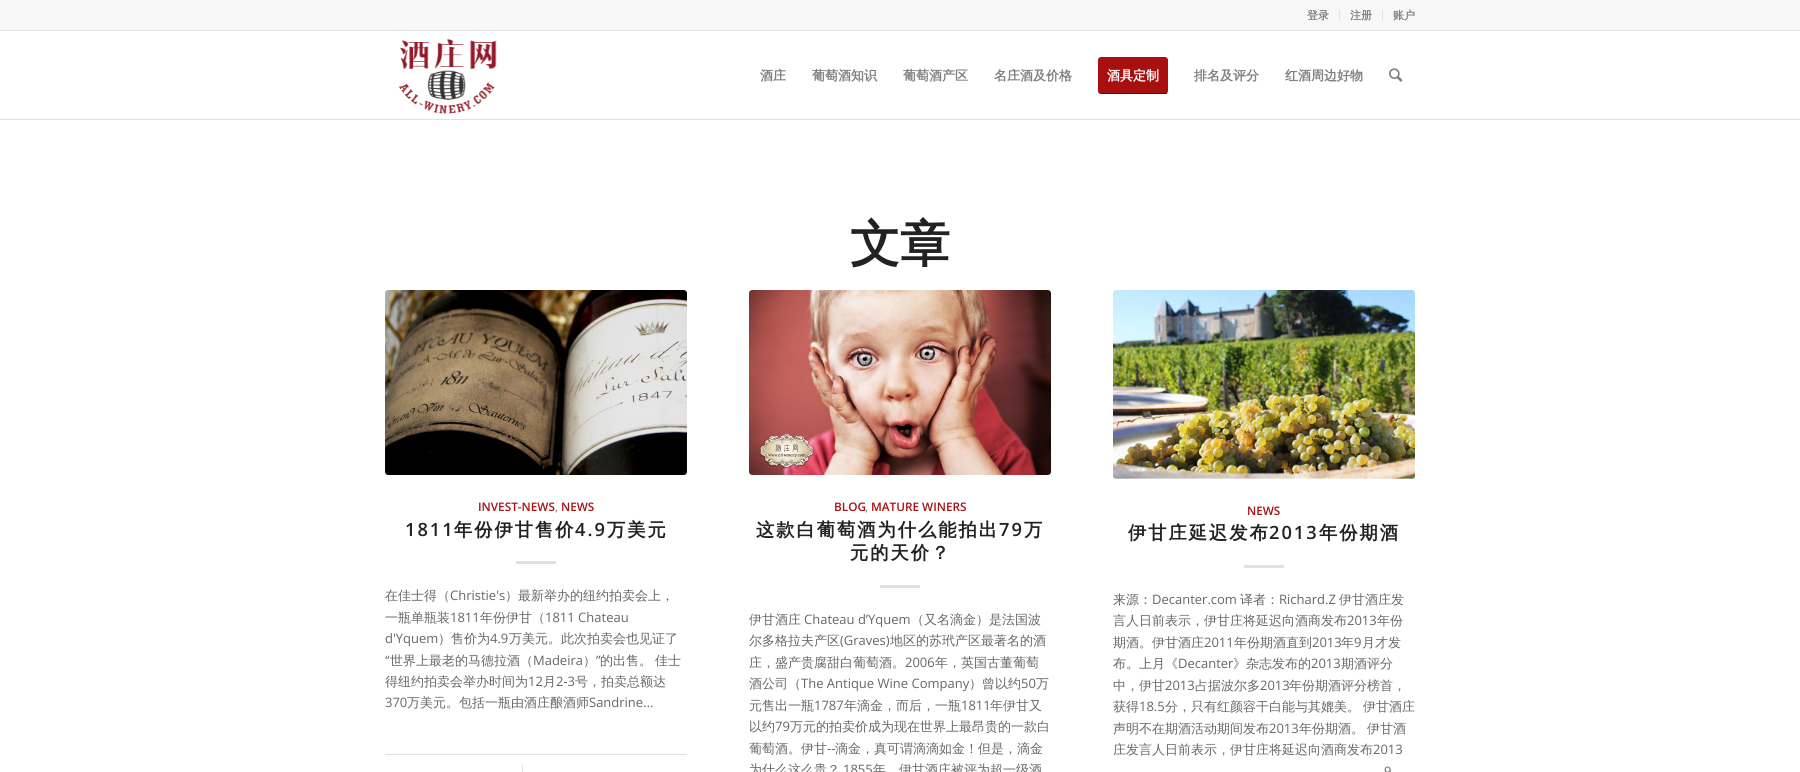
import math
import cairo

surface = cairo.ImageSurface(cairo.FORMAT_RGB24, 1800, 772)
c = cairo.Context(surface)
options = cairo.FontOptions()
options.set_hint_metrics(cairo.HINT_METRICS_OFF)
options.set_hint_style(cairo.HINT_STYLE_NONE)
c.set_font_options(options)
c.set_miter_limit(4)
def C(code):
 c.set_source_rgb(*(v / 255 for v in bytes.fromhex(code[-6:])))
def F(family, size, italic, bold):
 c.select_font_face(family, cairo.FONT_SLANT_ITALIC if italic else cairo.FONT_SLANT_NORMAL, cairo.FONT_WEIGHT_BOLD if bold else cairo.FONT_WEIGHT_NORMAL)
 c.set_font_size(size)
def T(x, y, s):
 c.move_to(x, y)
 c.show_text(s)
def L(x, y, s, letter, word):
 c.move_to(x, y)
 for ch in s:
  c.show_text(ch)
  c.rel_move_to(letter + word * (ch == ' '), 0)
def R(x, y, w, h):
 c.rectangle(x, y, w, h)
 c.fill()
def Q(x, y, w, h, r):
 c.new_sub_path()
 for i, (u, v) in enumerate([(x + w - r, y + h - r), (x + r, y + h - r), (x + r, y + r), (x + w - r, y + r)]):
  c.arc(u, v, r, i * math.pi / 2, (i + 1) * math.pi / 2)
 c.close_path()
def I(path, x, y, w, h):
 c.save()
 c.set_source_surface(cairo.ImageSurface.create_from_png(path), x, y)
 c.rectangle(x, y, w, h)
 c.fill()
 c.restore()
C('ffffff')
c.paint()
C('f8f8f8')
R(0,0,1800,30)
C('e1e1e1')
R(0,30,1800,1)
R(1339,10,1,10)
F('WenQuanYi Zen Hei',11,0,1)
C('808080')
T(1307,19,'登录')
C('e1e1e1')
R(1382,10,1,10)
C('808080')
T(1350,19,'注册')
T(1393,19,'账户')
C('e1e1e1')
R(0,119,1800,1)
I('1.png',399,39,98,75)
F('WenQuanYi Zen Hei',13,0,1)
C('808080')
T(760,80,'酒庄')
T(812,80,'葡萄酒知识')
T(903,80,'葡萄酒产区')
T(994,80,'名庄酒及价格')
C('a81010')
Q(1098,57,70,37,3)
c.fill()
C('ffffff')
T(1107,80,'酒具定制')
C('860000')
R(1100,93,67,1)
C('808080')
T(1194,80,'排名及评分')
T(1285,80,'红酒周边好物')
I('2.png',1389,68,14,14)
F('WenQuanYi Zen Hei',50,0,1)
C('222222')
T(850,261,'文章')
C('fcfcfc')
Q(385,290,302,185,3)
c.fill()
I('3.png',385,290,302,185)
F('Open Sans SemiBold',11.75,0,0)
C('a81010')
T(478,511,'INVEST-NEWS')
C('919191')
T(555,511,',')
C('a81010')
T(561,511,'NEWS')
F('Open Sans SemiBold',18.25,0,0)
C('222222')
L(405,536,'1811',2,0)
F('WenQuanYi Zen Hei',18.25,0,1)
L(454,536,'年份伊甘售价',2,0)
F('Open Sans SemiBold',18.25,0,0)
L(575,536,'4.9',2,0)
F('WenQuanYi Zen Hei',18.25,0,1)
L(607,536,'万美元',2,0)
C('e1e1e1')
R(516,561,40,3)
F('WenQuanYi Zen Hei Medium',13,0,0)
C('666666')
T(385,600,'在佳士得（')
F('Open Sans',13,0,0)
T(450,600,'Christie\'s')
F('WenQuanYi Zen Hei Medium',13,0,0)
T(505,600,'）最新举办的纽约拍卖会上，')
T(385,622,'一瓶单瓶装')
F('Open Sans',13,0,0)
T(450,622,'1811')
F('WenQuanYi Zen Hei Medium',13,0,0)
T(480,622,'年份伊甘（')
F('Open Sans',13,0,0)
T(545,622,'1811 Chateau')
T(385,643,'d\'Yquem')
F('WenQuanYi Zen Hei Medium',13,0,0)
T(438,643,'）售价为')
F('Open Sans',13,0,0)
T(490,643,'4.9')
F('WenQuanYi Zen Hei Medium',13,0,0)
T(509,643,'万美元。此次拍卖会也见证了')
F('Open Sans',13,0,0)
T(385,665,'“')
F('WenQuanYi Zen Hei Medium',13,0,0)
T(390,665,'世界上最老的马德拉酒（')
F('Open Sans',13,0,0)
T(533,665,'Madeira')
F('WenQuanYi Zen Hei Medium',13,0,0)
T(583,665,'）')
F('Open Sans',13,0,0)
T(596,665,'”')
F('WenQuanYi Zen Hei Medium',13,0,0)
T(600,665,'的出售。')
T(655,665,'佳士')
T(385,686,'得纽约拍卖会举办时间为')
F('Open Sans',13,0,0)
T(528,686,'12')
F('WenQuanYi Zen Hei Medium',13,0,0)
T(543,686,'月')
F('Open Sans',13,0,0)
T(556,686,'2-3')
F('WenQuanYi Zen Hei Medium',13,0,0)
T(575,686,'号，拍卖总额达')
F('Open Sans',13,0,0)
T(385,707,'370')
F('WenQuanYi Zen Hei Medium',13,0,0)
T(407,707,'万美元。包括一瓶由酒庄酿酒师')
F('Open Sans',13,0,0)
T(589,707,'Sandrine…')
C('e1e1e1')
R(385,754,302,1)
R(522,765,1,7)
C('fcfcfc')
Q(749,290,302,185,3)
c.fill()
I('4.png',749,290,302,185)
F('Open Sans SemiBold',11.75,0,0)
C('a81010')
T(834,511,'BLOG')
C('919191')
T(865,511,',')
C('a81010')
T(871,511,'MATURE WINERS')
F('WenQuanYi Zen Hei',18.25,0,1)
C('222222')
L(756,536,'这款白葡萄酒为什么能拍出',2,0)
F('Open Sans SemiBold',18.25,0,0)
L(999,536,'79',2,0)
F('WenQuanYi Zen Hei',18.25,0,1)
L(1024,536,'万',2,0)
L(850,559,'元的天价？',2,0)
C('e1e1e1')
R(880,585,40,3)
F('WenQuanYi Zen Hei Medium',13,0,0)
C('666666')
T(749,624,'伊甘酒庄')
F('Open Sans',13,0,0)
T(804,624,'Chateau d’Yquem')
F('WenQuanYi Zen Hei Medium',13,0,0)
T(911,624,'（又名滴金）是法国波')
T(749,645,'尔多格拉夫产区')
F('Open Sans',13,0,0)
T(840,645,'(Graves)')
F('WenQuanYi Zen Hei Medium',13,0,0)
T(890,645,'地区的苏玳产区最著名的酒')
T(749,667,'庄，盛产贵腐甜白葡萄酒。')
F('Open Sans',13,0,0)
T(905,667,'2006')
F('WenQuanYi Zen Hei Medium',13,0,0)
T(935,667,'年，英国古董葡萄')
T(749,688,'酒公司（')
F('Open Sans',13,0,0)
T(801,688,'The Antique Wine Company')
F('WenQuanYi Zen Hei Medium',13,0,0)
T(969,688,'）曾以约')
F('Open Sans',13,0,0)
T(1021,688,'50')
F('WenQuanYi Zen Hei Medium',13,0,0)
T(1036,688,'万')
T(749,710,'元售出一瓶')
F('Open Sans',13,0,0)
T(814,710,'1787')
F('WenQuanYi Zen Hei Medium',13,0,0)
T(844,710,'年滴金，而后，一瓶')
F('Open Sans',13,0,0)
T(961,710,'1811')
F('WenQuanYi Zen Hei Medium',13,0,0)
T(990,710,'年伊甘又')
T(749,731,'以约')
F('Open Sans',13,0,0)
T(775,731,'79')
F('WenQuanYi Zen Hei Medium',13,0,0)
T(790,731,'万元的拍卖价成为现在世界上最昂贵的一款白')
T(749,753,'葡萄酒。伊甘')
F('Open Sans',13,0,0)
T(827,753,'--')
F('WenQuanYi Zen Hei Medium',13,0,0)
T(835,753,'滴金，真可谓滴滴如金！但是，滴金')
T(749,774,'为什么这么贵？')
F('Open Sans',13,0,0)
T(843,774,'1855')
F('WenQuanYi Zen Hei Medium',13,0,0)
T(873,774,'年，伊甘酒庄被评为超一级酒')
C('fcfcfc')
Q(1113,290,302,189,3)
c.fill()
I('5.png',1113,290,302,189)
F('Open Sans SemiBold',11.75,0,0)
C('a81010')
T(1247,515,'NEWS')
F('WenQuanYi Zen Hei',18.25,0,1)
C('222222')
L(1128,539,'伊甘庄延迟发布',2,0)
F('Open Sans SemiBold',18.25,0,0)
L(1269,539,'2013',2,0)
F('WenQuanYi Zen Hei',18.25,0,1)
L(1319,539,'年份期酒',2,0)
C('e1e1e1')
R(1244,565,40,3)
F('WenQuanYi Zen Hei Medium',13,0,0)
C('666666')
T(1113,604,'来源：')
F('Open Sans',13,0,0)
T(1152,604,'Decanter.com')
F('WenQuanYi Zen Hei Medium',13,0,0)
T(1240,604,'译者：')
F('Open Sans',13,0,0)
T(1279,604,'Richard.Z')
F('WenQuanYi Zen Hei Medium',13,0,0)
T(1339,604,'伊甘酒庄发')
T(1113,625,'言人日前表示，伊甘庄将延迟向酒商发布')
F('Open Sans',13,0,0)
T(1347,625,'2013')
F('WenQuanYi Zen Hei Medium',13,0,0)
T(1377,625,'年份')
T(1113,647,'期酒。伊甘酒庄')
F('Open Sans',13,0,0)
T(1204,647,'2011')
F('WenQuanYi Zen Hei Medium',13,0,0)
T(1234,647,'年份期酒直到')
F('Open Sans',13,0,0)
T(1312,647,'2013')
F('WenQuanYi Zen Hei Medium',13,0,0)
T(1341,647,'年')
F('Open Sans',13,0,0)
T(1354,647,'9')
F('WenQuanYi Zen Hei Medium',13,0,0)
T(1362,647,'月才发')
T(1113,668,'布。上月《')
F('Open Sans',13,0,0)
T(1178,668,'Decanter')
F('WenQuanYi Zen Hei Medium',13,0,0)
T(1233,668,'》杂志发布的')
F('Open Sans',13,0,0)
T(1311,668,'2013')
F('WenQuanYi Zen Hei Medium',13,0,0)
T(1341,668,'期酒评分')
T(1113,690,'中，伊甘')
F('Open Sans',13,0,0)
T(1165,690,'2013')
F('WenQuanYi Zen Hei Medium',13,0,0)
T(1195,690,'占据波尔多')
F('Open Sans',13,0,0)
T(1260,690,'2013')
F('WenQuanYi Zen Hei Medium',13,0,0)
T(1289,690,'年份期酒评分榜首，')
T(1113,711,'获得')
F('Open Sans',13,0,0)
T(1139,711,'18.5')
F('WenQuanYi Zen Hei Medium',13,0,0)
L(1165,711,'分，只有红颜容干白能与其媲美。 伊甘酒庄',0,-1)
T(1113,733,'声明不在期酒活动期间发布')
F('Open Sans',13,0,0)
T(1269,733,'2013')
F('WenQuanYi Zen Hei Medium',13,0,0)
T(1299,733,'年份期酒。')
T(1367,733,'伊甘酒')
T(1113,754,'庄发言人日前表示，伊甘庄将延迟向酒商发布')
F('Open Sans',13,0,0)
T(1373,754,'2013')
T(1384,776,'9')
surface.write_to_png('o.png')
